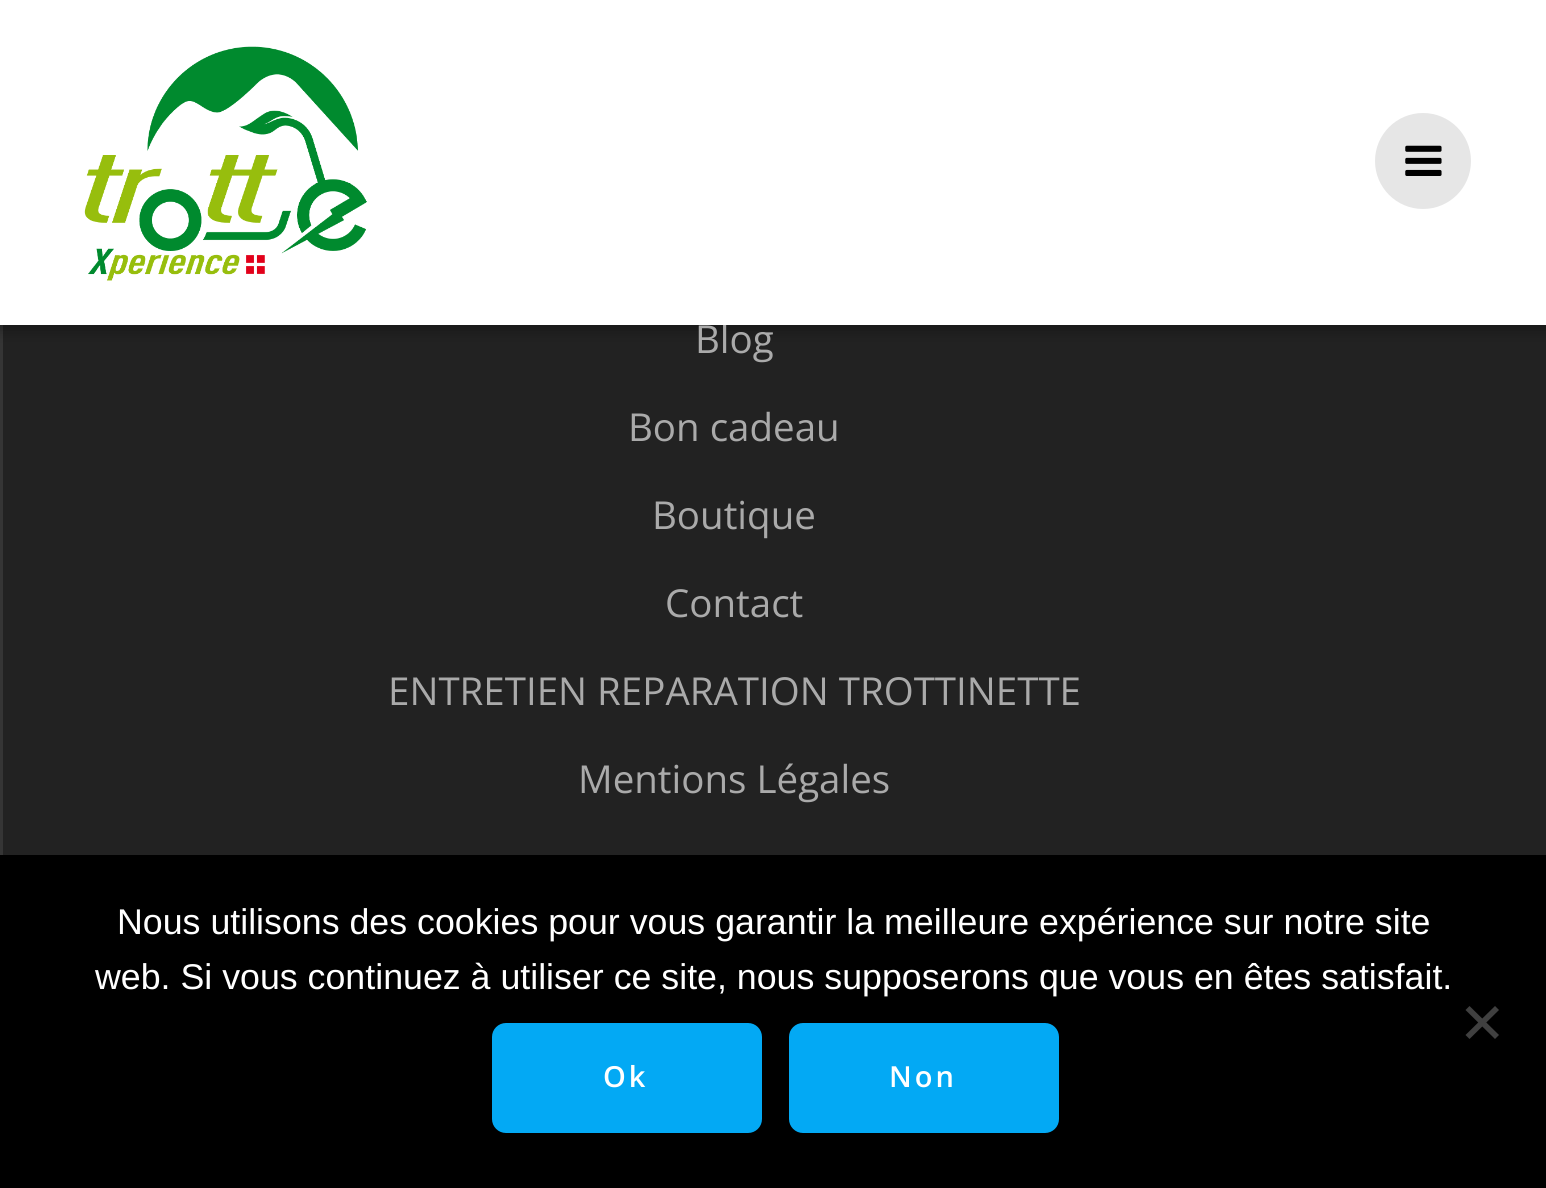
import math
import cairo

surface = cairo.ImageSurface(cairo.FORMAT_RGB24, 1546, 1188)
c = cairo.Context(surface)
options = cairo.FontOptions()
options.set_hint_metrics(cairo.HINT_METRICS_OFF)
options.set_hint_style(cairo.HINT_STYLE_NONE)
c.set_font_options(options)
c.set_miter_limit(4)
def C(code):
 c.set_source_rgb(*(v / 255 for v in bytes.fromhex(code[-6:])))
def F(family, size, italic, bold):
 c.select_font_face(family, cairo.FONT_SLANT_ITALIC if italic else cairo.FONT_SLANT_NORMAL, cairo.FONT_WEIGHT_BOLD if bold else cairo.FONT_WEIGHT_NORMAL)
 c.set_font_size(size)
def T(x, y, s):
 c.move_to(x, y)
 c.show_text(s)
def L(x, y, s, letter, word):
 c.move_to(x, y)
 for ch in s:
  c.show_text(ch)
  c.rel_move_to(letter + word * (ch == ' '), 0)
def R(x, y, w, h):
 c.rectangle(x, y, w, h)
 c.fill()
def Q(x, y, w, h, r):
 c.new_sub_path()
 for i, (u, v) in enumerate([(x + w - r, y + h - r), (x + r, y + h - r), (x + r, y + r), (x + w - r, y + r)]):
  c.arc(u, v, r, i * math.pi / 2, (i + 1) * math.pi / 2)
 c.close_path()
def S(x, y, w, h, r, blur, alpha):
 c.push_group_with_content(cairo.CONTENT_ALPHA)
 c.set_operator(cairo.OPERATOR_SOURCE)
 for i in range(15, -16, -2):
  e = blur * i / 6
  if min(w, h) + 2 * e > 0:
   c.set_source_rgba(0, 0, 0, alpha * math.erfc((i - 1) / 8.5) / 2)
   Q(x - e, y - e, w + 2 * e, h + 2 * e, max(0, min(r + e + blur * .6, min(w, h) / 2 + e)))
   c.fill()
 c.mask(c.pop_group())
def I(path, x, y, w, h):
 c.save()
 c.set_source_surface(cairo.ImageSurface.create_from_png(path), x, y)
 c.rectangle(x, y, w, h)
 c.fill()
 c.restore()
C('222222')
c.paint()
C('353535')
R(0,325,3,530)
C('000000')
S(-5,-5,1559,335,0,7,.33)
F('Open Sans',38.5,0,0)
C('aaaaaa')
T(695,353,'Blog')
C('ffffff')
R(0,0,1546,325)
I('1.png',84,46,283,235)
C('e6e6e6')
c.arc(1423,161,48,0,2 * math.pi)
c.fill()
I('2.png',1405,145,37,31)
C('aaaaaa')
T(628,441,'Bon cadeau')
T(652,529,'Boutique')
T(665,617,'Contact')
T(388,705,'ENTRETIEN REPARATION TROTTINETTE')
T(578,793,'Mentions Légales')
C('000000')
R(0,855,1546,333)
F('Liberation Sans',35.75,0,0)
C('ffffff')
T(117,934,'Nous utilisons des cookies pour vous garantir la meilleure expérience sur notre site')
T(95,989,'web. Si vous continuez à utiliser ce site, nous supposerons que vous en êtes satisfait.')
C('404040')
c.new_path()
c.move_to(1495,1006)
c.line_to(1499,1010)
c.line_to(1469.5,1039)
c.line_to(1465.5,1035)
c.close_path()
c.fill()
c.new_path()
c.move_to(1465.5,1010)
c.line_to(1469.5,1006)
c.line_to(1499,1035)
c.line_to(1495,1039)
c.close_path()
c.fill()
C('03a9f4')
Q(495,1026,264,104,11)
c.fill_preserve()
c.set_line_width(6)
c.stroke()
F('Open Sans SemiBold',29,0,0)
C('ffffff')
L(603,1087,'Ok',3,0)
C('03a9f4')
Q(792,1026,264,104,11)
c.fill_preserve()
c.stroke()
C('ffffff')
L(889,1087,'Non',3,0)
surface.write_to_png('o.png')
